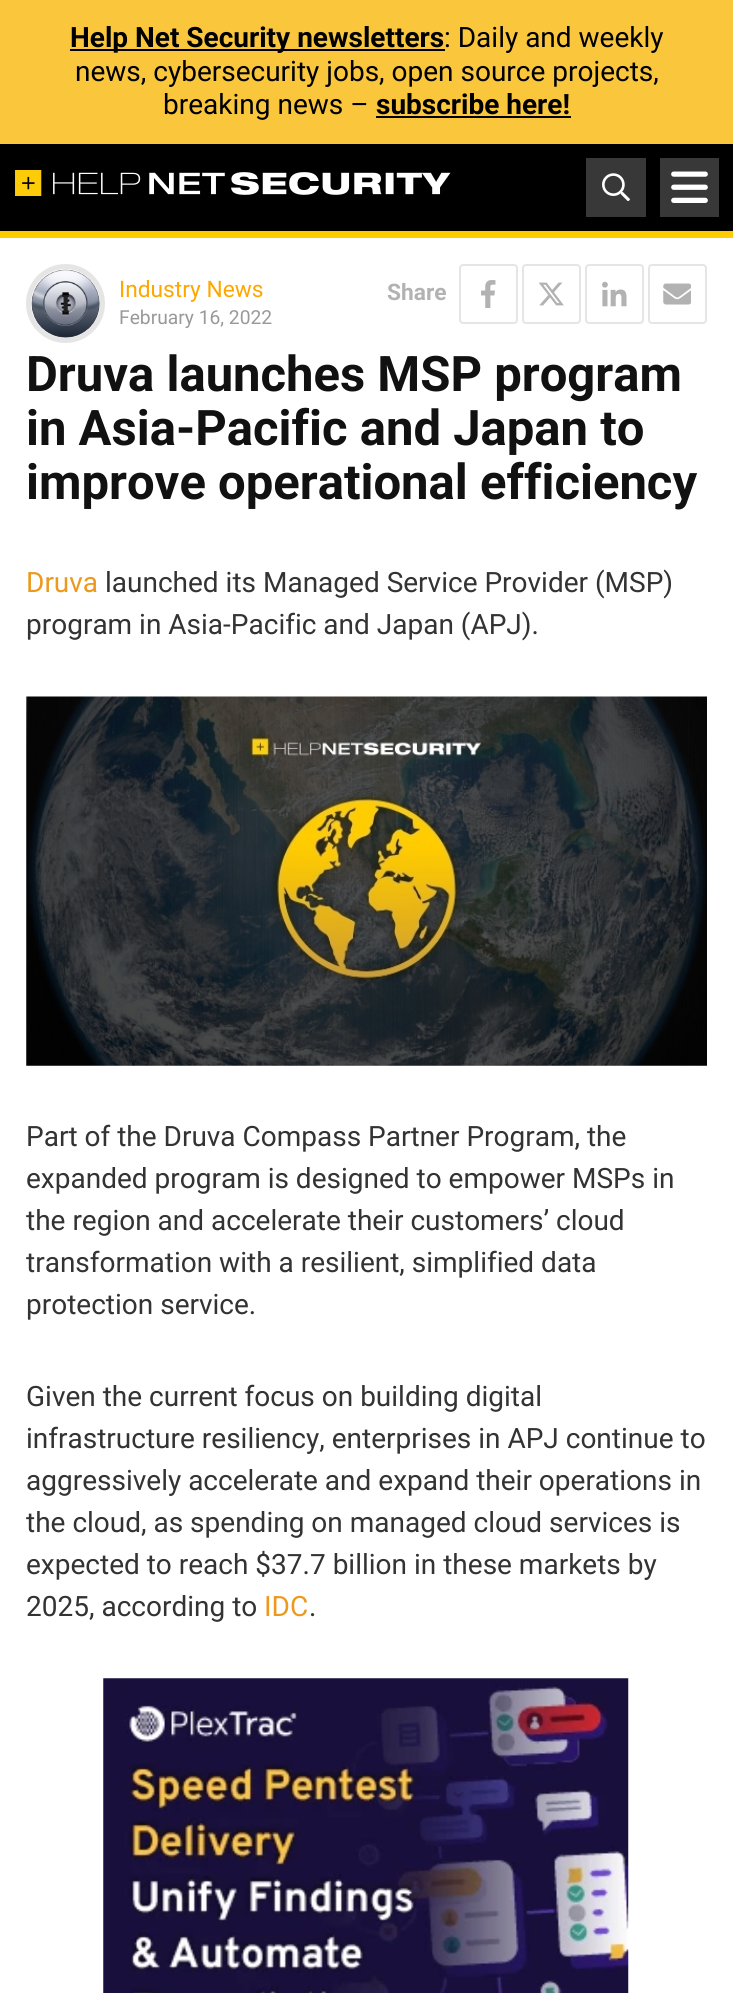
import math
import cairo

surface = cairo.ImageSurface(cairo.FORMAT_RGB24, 733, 1993)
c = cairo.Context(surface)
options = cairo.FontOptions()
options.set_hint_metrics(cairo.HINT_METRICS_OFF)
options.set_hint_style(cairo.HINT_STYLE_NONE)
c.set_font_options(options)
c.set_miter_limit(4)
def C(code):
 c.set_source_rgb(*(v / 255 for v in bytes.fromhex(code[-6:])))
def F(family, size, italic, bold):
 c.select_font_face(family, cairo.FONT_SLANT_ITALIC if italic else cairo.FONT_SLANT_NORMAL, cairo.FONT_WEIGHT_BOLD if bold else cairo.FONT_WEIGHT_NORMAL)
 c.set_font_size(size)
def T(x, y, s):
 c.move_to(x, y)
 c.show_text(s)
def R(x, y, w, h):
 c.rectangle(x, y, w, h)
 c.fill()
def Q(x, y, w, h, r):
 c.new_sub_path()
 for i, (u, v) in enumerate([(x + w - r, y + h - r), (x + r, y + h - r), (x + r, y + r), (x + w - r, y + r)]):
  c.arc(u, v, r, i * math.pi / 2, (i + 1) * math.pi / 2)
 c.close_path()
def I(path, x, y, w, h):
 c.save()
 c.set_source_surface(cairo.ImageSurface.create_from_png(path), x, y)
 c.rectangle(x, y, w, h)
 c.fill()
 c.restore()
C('ffffff')
c.paint()
C('f9c63c')
R(0,0,733,144)
C('000000')
R(70,49,375,2)
F('Roboto',28,0,1)
T(70,47,'Help Net Security newsletters')
F('Roboto',28,0,0)
T(444,47,': Daily and weekly')
T(75,81,'news, cybersecurity jobs, open source projects,')
T(163,114,'breaking news –')
F('Roboto',28,0,1)
T(376,114,'subscribe here!')
R(376,116,195,2)
R(0,144,733,87)
I('1.png',15,170,436,26)
C('393838')
R(586,158,60,59)
I('2.png',602,173,28,28)
R(660,158,59,59)
I('3.png',671,171,37,32)
C('fdcd00')
R(0,231,733,7)
c.arc(65.5,303.5,37,0,2 * math.pi)
C('e5e5e5')
c.set_line_width(5)
c.stroke()
I('4.png',31,269,69,69)
F('Roboto',22.75,0,0)
C('fda700')
T(119,297,'Industry News')
F('Roboto',19.25,0,0)
C('999999')
T(119,324,'February 16, 2022')
F('Roboto',22.75,0,1)
C('b2b2b2')
T(387,300,'Share')
Q(460,265,57,58,3)
C('e5e5e5')
c.set_line_width(2)
c.stroke()
I('5.png',481,280,15,28)
Q(523,265,57,58,3)
c.stroke()
I('6.png',538,282,26,24)
Q(586,265,57,58,3)
c.stroke()
I('7.png',602,281,25,26)
Q(649,265,57,58,3)
c.stroke()
I('8.png',663,283,28,22)
F('Roboto',49,0,1)
C('111111')
T(26,391,'Druva launches MSP program')
T(26,445,'in Asia-Pacific and Japan to')
T(26,499,'improve operational efficiency')
F('Roboto',28,0,0)
C('ec991d')
T(26,592,'Druva')
C('333333')
T(105,592,'launched its Managed Service Provider (MSP)')
T(26,634,'program in Asia-Pacific and Japan (APJ).')
I('9.png',26,696,681,370)
T(26,1146,'Part of the Druva Compass Partner Program, the')
T(26,1188,'expanded program is designed to empower MSPs in')
T(26,1230,'the region and accelerate their customers’ cloud')
T(26,1272,'transformation with a resilient, simplified data')
T(26,1314,'protection service.')
T(26,1406,'Given the current focus on building digital')
T(26,1448,'infrastructure resiliency, enterprises in APJ continue to')
T(26,1490,'aggressively accelerate and expand their operations in')
T(26,1532,'the cloud, as spending on managed cloud services is')
T(26,1574,'expected to reach $37.7 billion in these markets by')
T(26,1616,'2025, according to')
C('ec991d')
T(264,1616,'IDC')
C('333333')
T(309,1616,'.')
I('10.png',103,1678,526,315)
surface.write_to_png('o.png')
